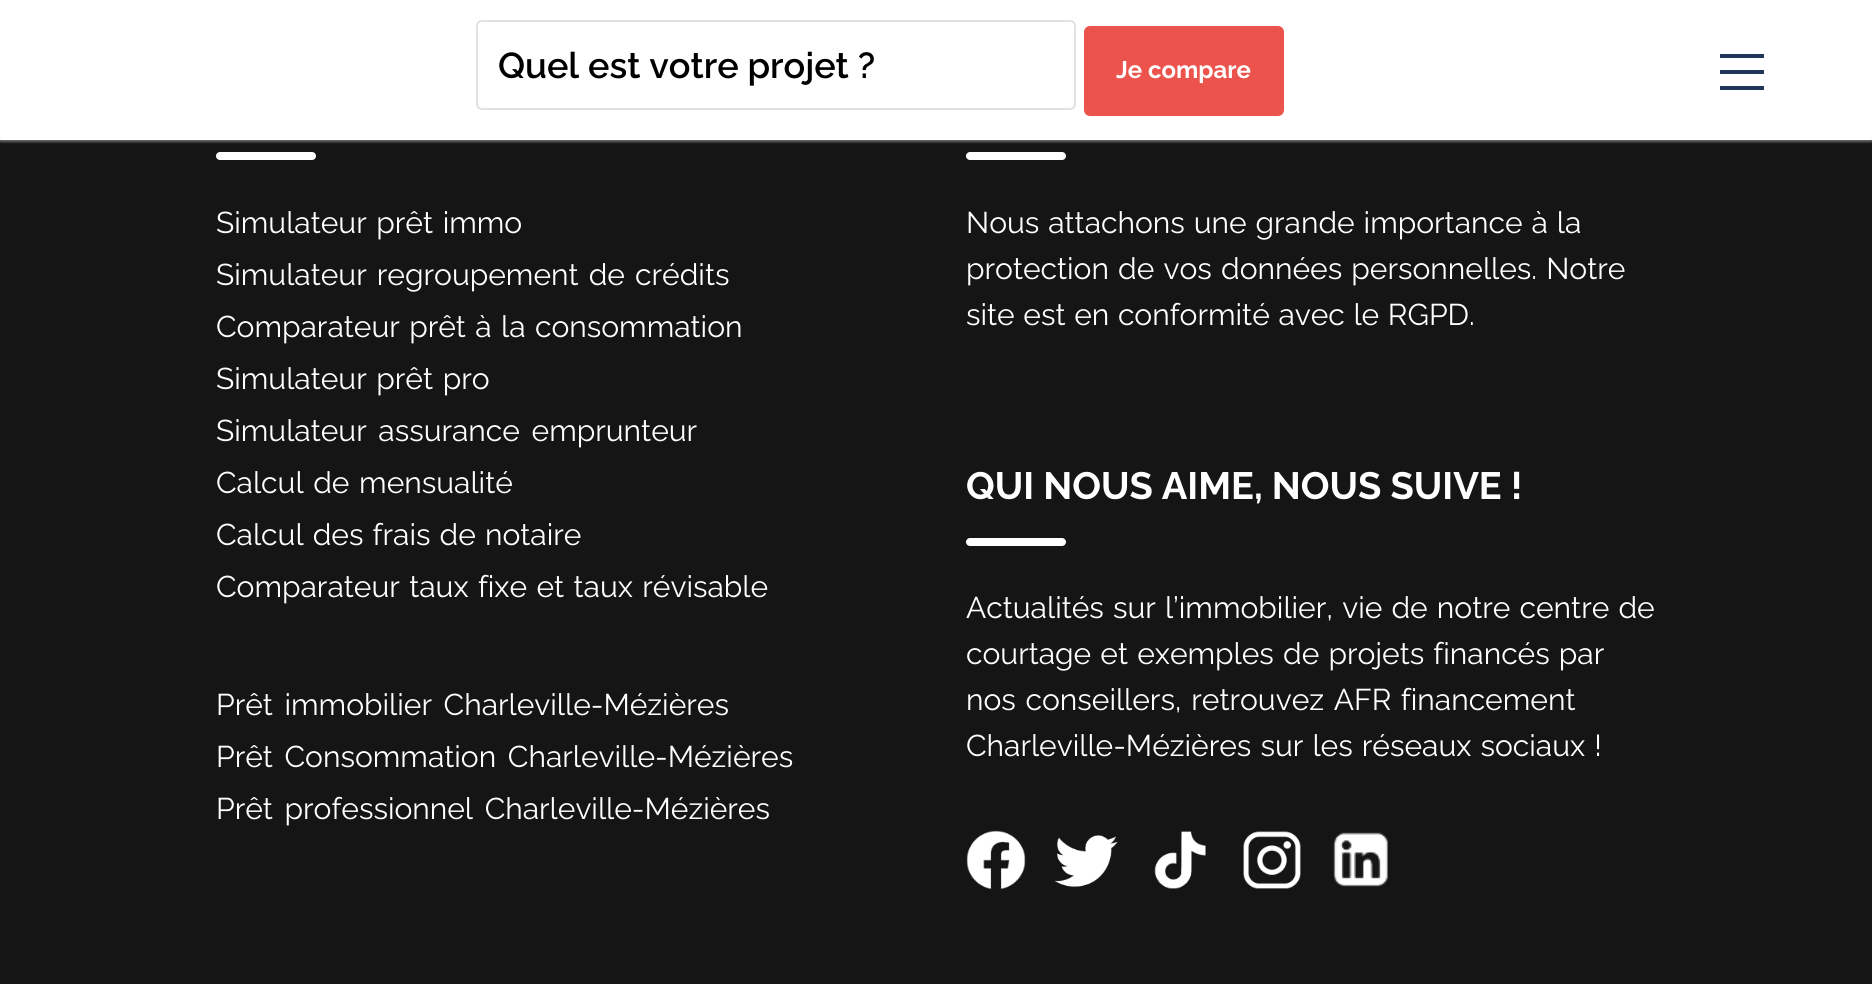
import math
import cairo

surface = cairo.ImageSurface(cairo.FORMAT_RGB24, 1872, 984)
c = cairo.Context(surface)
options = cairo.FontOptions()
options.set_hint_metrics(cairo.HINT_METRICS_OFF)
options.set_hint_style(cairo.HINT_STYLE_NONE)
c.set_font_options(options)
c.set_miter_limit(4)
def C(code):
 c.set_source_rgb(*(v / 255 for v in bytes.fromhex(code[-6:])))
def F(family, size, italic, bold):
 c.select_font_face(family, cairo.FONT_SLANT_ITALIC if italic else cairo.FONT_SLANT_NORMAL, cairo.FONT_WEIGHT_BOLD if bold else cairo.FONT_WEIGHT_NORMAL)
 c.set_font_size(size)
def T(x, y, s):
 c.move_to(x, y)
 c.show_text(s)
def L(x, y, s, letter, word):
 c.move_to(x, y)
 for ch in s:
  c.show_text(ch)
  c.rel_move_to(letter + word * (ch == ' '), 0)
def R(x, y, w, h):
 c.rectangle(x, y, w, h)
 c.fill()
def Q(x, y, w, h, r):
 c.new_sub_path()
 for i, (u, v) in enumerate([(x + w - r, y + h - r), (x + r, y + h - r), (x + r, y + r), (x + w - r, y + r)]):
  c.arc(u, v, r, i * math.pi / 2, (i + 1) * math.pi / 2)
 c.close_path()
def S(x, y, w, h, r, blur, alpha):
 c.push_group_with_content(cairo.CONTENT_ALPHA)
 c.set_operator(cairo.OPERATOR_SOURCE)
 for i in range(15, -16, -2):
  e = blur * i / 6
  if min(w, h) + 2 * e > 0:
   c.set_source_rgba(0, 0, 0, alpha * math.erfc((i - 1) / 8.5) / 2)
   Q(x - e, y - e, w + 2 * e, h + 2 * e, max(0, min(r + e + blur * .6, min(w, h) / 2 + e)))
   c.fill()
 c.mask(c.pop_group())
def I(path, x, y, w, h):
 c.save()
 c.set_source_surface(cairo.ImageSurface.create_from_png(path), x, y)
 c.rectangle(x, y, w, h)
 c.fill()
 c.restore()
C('151515')
c.paint()
C('ffffff')
R(0,0,1872,140)
c.save()
c.rectangle(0,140,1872,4)
c.clip()
C('666666')
S(0,2,1872,140,0,1,1)
c.restore()
Q(477,21,598,88,5)
C('e1e1e1')
c.stroke()
F('Raleway SemiBold',36,0,0)
C('000000')
T(498,78,'Quel est votre projet ?')
C('eb534c')
Q(1084,26,200,90,6)
c.fill()
F('Raleway',24,0,1)
C('ffffff')
T(1116,78,'Je compare')
C('213559')
R(1720,70,44,4)
R(1720,54,44,4)
R(1720,86,44,4)
C('ffffff')
Q(216,152,100,8,4)
c.fill()
F('Raleway',30,0,0)
L(216,233,'Simulateur prêt immo',0,2)
L(216,285,'Simulateur regroupement de crédits',0,2.5)
L(216,337,'Comparateur prêt à la consommation',0,1.75)
L(216,389,'Simulateur prêt pro',0,2)
L(216,441,'Simulateur assurance emprunteur',0,4)
L(216,493,'Calcul de mensualité',0,2)
L(216,545,'Calcul des frais de notaire',0,1.5)
L(216,597,'Comparateur taux fixe et taux révisable',0,1.75)
L(216,715,'Prêt immobilier Charleville-Mézières',0,4)
L(216,767,'Prêt Consommation Charleville-Mézières',0,4)
L(216,819,'Prêt professionnel Charleville-Mézières',0,4)
Q(966,152,100,8,4)
c.fill()
L(966,233,'Nous attachons une grande importance à la',0,1.25)
L(966,279,'protection de vos données personnelles. Notre',0,1.5)
L(966,325,'site est en conformité avec le RGPD.',0,1)
F('Raleway',38,0,1)
T(966,499,'QUI NOUS AIME, NOUS SUIVE !')
Q(966,538,100,8,4)
c.fill()
F('Raleway',30,0,0)
L(966,618,'Actualités sur l’immobilier, vie de notre centre de',0,1.5)
L(966,664,'courtage et exemples de projets financés par',0,1.5)
L(966,710,'nos conseillers, retrouvez AFR financement',0,2)
L(966,756,'Charleville-Mézières sur les réseaux sociaux !',0,1.5)
I('1.png',966,830,60,60)
I('2.png',1054,835,64,52)
I('3.png',1154,831,52,58)
I('4.png',1243,831,58,58)
I('5.png',1333,832,55,55)
surface.write_to_png('o.png')
